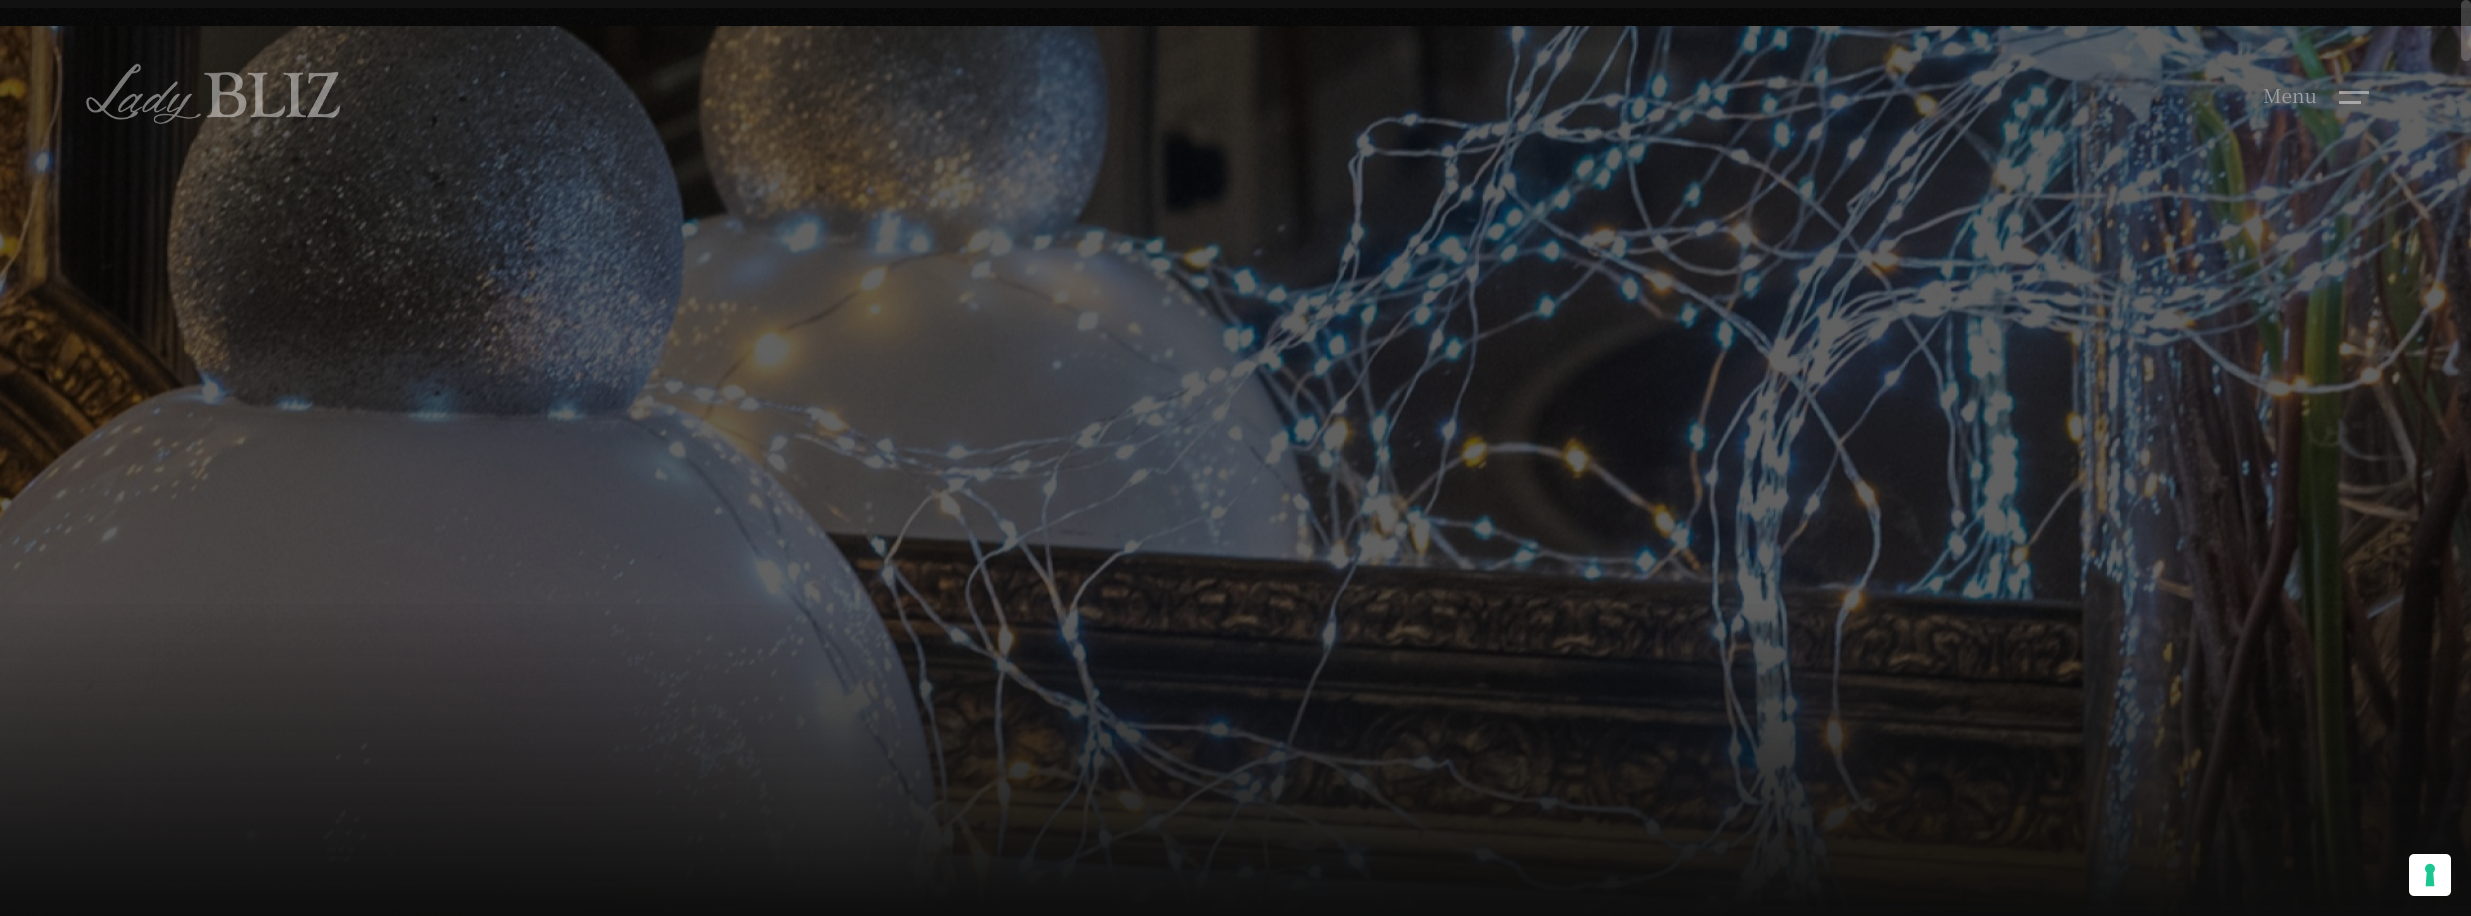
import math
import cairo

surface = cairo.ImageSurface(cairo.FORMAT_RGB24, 2471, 916)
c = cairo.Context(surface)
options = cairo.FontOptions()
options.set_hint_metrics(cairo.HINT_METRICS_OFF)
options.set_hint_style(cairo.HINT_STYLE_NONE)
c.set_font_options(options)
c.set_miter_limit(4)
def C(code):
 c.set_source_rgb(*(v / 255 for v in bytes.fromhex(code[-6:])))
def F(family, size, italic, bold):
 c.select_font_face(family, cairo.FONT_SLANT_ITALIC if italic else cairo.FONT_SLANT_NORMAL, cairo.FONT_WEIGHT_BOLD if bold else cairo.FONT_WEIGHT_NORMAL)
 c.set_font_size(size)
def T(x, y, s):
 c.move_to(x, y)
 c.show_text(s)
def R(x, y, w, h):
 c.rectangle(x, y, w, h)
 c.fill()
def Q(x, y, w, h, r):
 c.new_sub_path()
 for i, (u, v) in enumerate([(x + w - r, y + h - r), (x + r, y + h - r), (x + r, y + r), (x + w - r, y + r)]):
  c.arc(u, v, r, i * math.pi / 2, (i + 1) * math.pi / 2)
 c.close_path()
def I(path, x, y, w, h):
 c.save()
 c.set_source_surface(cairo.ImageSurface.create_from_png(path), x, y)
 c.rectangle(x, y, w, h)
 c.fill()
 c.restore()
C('070707')
c.paint()
I('2.png',0,8,2471,908)
I('1.png',0,26,2471,890)
C('111111')
R(0,0,2471,8)
c.set_source_rgba(0.867,0.867,0.867,0.25)
Q(2461,0,10,61,5)
c.fill()
gradient = cairo.LinearGradient(1236,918,1236,596)
gradient.add_color_stop_rgba(0,0.051,0.051,0.051,1)
gradient.add_color_stop_rgba(1,0.051,0.051,0.051,0)
c.set_source(gradient)
R(0,604,2471,312)
I('3.png',86,63,254,61)
F('Noto Serif JP',19,0,0)
C('9ea2a5')
T(2263,103,'Menu')
c.set_source_rgba(1,1,1,0.45)
R(2339,91,30,3)
R(2339,101,22,3)
Q(2408.5,853.5,44,44,5.5)
c.set_source_rgba(0,0,0,0.15)
c.set_line_width(1)
c.stroke()
C('ffffff')
Q(2409,854,42,42,5)
c.fill()
I('4.png',2425,863,10,24)
surface.write_to_png('o.png')
